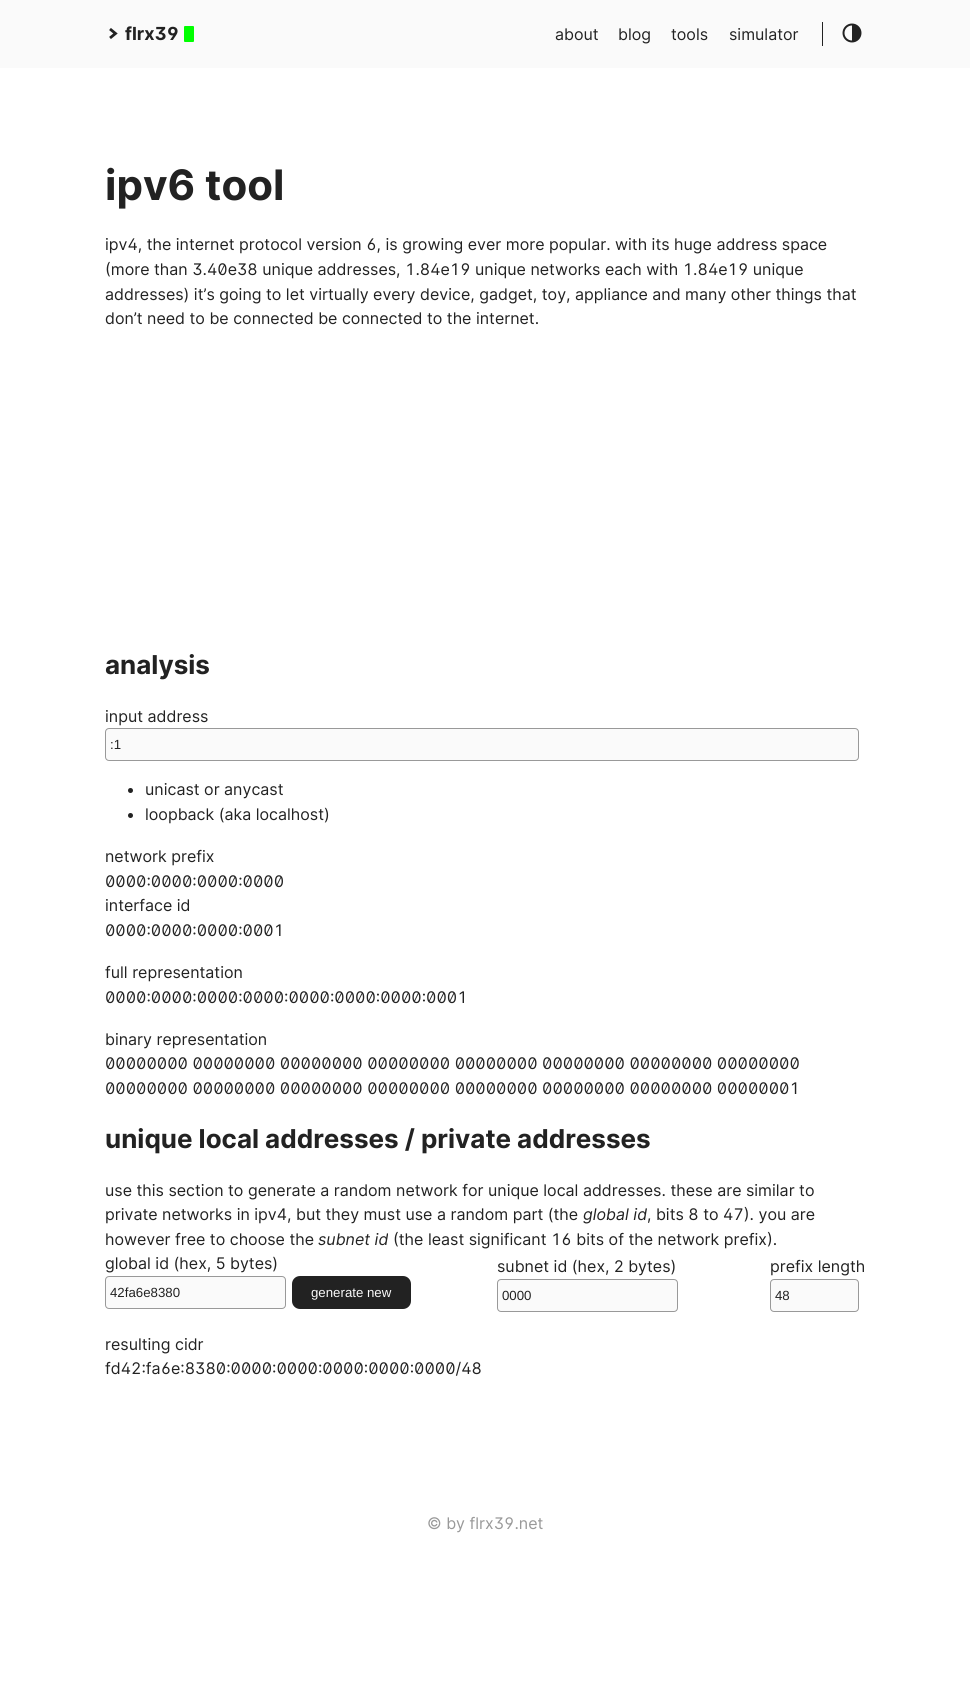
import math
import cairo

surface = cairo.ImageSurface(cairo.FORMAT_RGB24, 970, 1691)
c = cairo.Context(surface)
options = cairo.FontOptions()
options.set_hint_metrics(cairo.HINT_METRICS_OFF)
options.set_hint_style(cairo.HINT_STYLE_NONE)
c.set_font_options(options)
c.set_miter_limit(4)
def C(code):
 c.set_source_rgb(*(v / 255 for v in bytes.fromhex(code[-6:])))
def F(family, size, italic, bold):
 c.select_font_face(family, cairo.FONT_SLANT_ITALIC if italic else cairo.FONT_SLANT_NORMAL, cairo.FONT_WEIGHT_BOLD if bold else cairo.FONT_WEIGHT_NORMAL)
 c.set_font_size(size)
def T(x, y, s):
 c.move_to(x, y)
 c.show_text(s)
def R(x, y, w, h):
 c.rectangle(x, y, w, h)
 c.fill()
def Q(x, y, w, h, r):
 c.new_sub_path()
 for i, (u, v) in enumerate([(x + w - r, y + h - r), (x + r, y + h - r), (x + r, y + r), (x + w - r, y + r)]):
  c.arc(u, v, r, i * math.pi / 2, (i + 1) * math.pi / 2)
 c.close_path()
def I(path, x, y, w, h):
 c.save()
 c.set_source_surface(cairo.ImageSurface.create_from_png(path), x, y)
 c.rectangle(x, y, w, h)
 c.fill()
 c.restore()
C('ffffff')
c.paint()
C('fafafa')
R(0,0,970,68)
c.new_path()
c.move_to(110,29)
c.line_to(115.5,33.5)
c.line_to(110,38)
C('222222')
c.set_line_width(2.8)
c.stroke()
F('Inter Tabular',18,0,1)
T(125,40,'flrx39')
C('00ff00')
Q(184,26,10,16,1)
c.fill()
C('222222')
R(822,22,1,24)
F('Inter',16,0,0)
T(555,40,'about')
T(618,40,'blog')
T(671,40,'tools')
T(729,40,'simulator')
I('1.png',842,23,20,20)
F('Inter',42,0,1)
T(105,200,'ipv6 tool')
F('Inter Tabular',16,0,0)
T(105,250,'ipv4, the internet protocol version 6, is growing ever more popular. with its huge address space')
T(105,275,'(more than 3.40e38 unique addresses, 1.84e19 unique networks each with 1.84e19 unique')
F('Inter',16,0,0)
T(105,300,'addresses) it’s going to let virtually every device, gadget, toy, appliance and many other things that')
T(105,324,'don’t need to be connected be connected to the internet.')
F('Inter',26,0,1)
T(105,674,'analysis')
F('Inter',16,0,0)
T(105,722,'input address')
C('fafafa')
Q(105.5,728.5,753,32,3.5)
c.fill_preserve()
C('999999')
c.set_line_width(1)
c.stroke()
F('Liberation Sans',13.25,0,0)
C('222222')
T(110,749,':1')
c.new_path()
c.arc(130.5,790.5,2.5,0,2 * math.pi)
c.fill()
F('Inter',16,0,0)
T(145,795,'unicast or anycast')
c.new_path()
c.arc(130.5,815.5,2.5,0,2 * math.pi)
c.fill()
T(145,820,'loopback (aka localhost)')
T(105,862,'network prefix')
F('Inter Tabular',16,0,0)
T(105,887,'0000:0000:0000:0000')
F('Inter',16,0,0)
T(105,911,'interface id')
F('Inter Tabular',16,0,0)
T(105,936,'0000:0000:0000:0001')
F('Inter',16,0,0)
T(105,978,'full representation')
F('Inter Tabular',16,0,0)
T(105,1003,'0000:0000:0000:0000:0000:0000:0000:0001')
F('Inter',16,0,0)
T(105,1045,'binary representation')
F('Inter Tabular',16,0,0)
T(105,1069,'00000000 00000000 00000000 00000000 00000000 00000000 00000000 00000000')
T(105,1094,'00000000 00000000 00000000 00000000 00000000 00000000 00000000 00000001')
F('Inter',26,0,1)
T(105,1148,'unique local addresses / private addresses')
F('Inter',16,0,0)
T(105,1196,'use this section to generate a random network for unique local addresses. these are similar to')
T(105,1220,'private networks in ipv4, but they must use a random part (the')
F('Inter',16,1,0)
T(583,1220,'global id')
F('Inter Tabular',16,0,0)
T(647,1220,', bits 8 to 47). you are')
F('Inter',16,0,0)
T(105,1245,'however free to choose the')
F('Inter',16,1,0)
T(318,1245,'subnet id')
F('Inter Tabular',16,0,0)
T(393,1245,'(the least significant 16 bits of the network prefix).')
F('Inter',16,0,0)
T(105,1269,'global id (hex, 5 bytes)')
C('fafafa')
Q(105.5,1276.5,180,32,3.5)
c.fill_preserve()
C('999999')
c.stroke()
F('Liberation Sans',13.25,0,0)
C('222222')
T(110,1297,'42fa6e8380')
Q(292,1276,119,33,8)
c.fill()
C('fafafa')
T(311,1297,'generate new')
F('Inter',16,0,0)
C('222222')
T(497,1272,'subnet id (hex, 2 bytes)')
C('fafafa')
Q(497.5,1279.5,180,32,3.5)
c.fill_preserve()
C('999999')
c.stroke()
F('Liberation Sans',13.25,0,0)
C('222222')
T(502,1300,'0000')
F('Inter',16,0,0)
T(770,1272,'prefix length')
C('fafafa')
Q(770.5,1279.5,88,32,3.5)
c.fill_preserve()
C('999999')
c.stroke()
F('Liberation Sans',13.25,0,0)
C('222222')
T(775,1300,'48')
F('Inter',16,0,0)
T(105,1350,'resulting cidr')
F('Inter Tabular',16,0,0)
T(105,1374,'fd42:fa6e:8380:0000:0000:0000:0000:0000/48')
C('999999')
T(427,1529,'© by flrx39.net')
surface.write_to_png('o.png')
